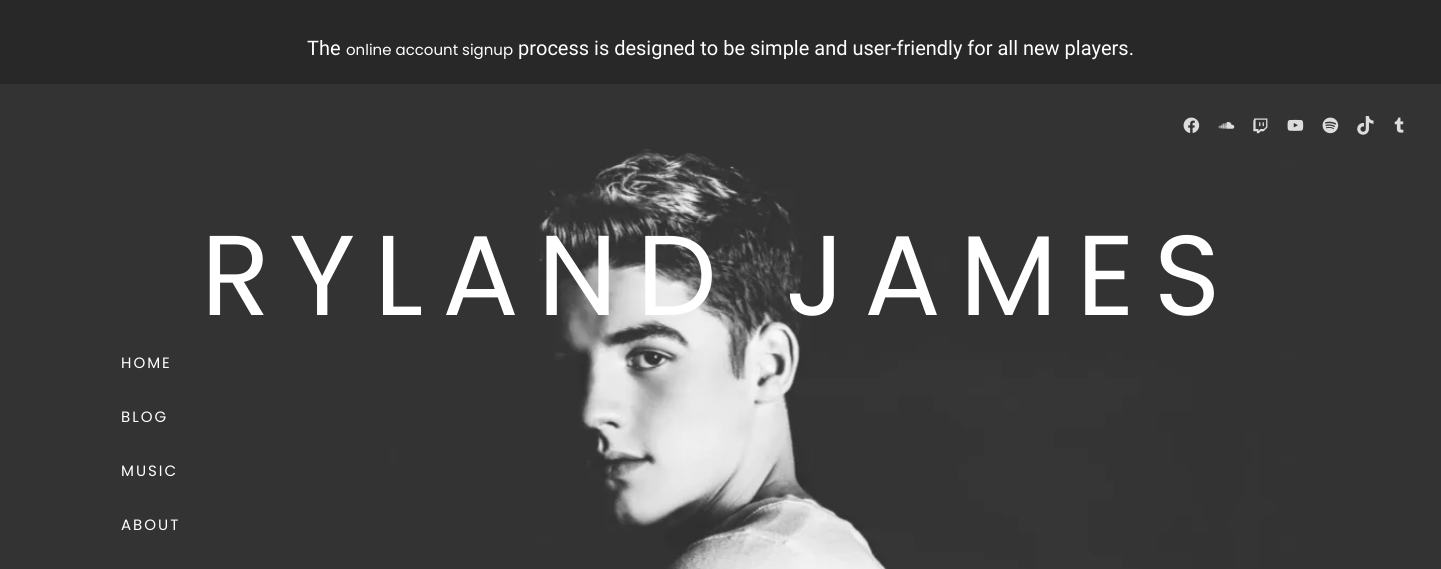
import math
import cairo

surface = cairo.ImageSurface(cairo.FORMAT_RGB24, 1441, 569)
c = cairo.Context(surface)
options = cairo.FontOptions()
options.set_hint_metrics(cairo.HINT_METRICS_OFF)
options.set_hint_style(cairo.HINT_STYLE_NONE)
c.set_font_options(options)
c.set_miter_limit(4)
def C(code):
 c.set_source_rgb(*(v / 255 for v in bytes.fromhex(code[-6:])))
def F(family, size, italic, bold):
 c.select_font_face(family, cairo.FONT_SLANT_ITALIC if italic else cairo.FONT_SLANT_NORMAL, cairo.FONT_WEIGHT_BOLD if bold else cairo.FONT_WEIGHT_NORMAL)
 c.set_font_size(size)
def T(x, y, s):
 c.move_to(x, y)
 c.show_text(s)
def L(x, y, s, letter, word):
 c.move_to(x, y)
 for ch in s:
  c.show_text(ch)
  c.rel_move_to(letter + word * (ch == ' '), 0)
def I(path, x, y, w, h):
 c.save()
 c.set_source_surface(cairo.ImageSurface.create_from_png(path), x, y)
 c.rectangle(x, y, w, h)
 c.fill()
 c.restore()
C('282828')
c.paint()
F('Roboto',20,0,0)
C('ffffff')
T(307,55,'The')
F('Poppins',15,0,0)
T(346,55,'online account signup')
F('Roboto',20,0,0)
T(518,55,'process is designed to be simple and user-friendly for all new players.')
I('1.png',0,84,1441,485)
I('2.png',1183,117,17,16)
I('3.png',1218,122,17,7)
I('4.png',1253,118,15,16)
I('5.png',1287,119,17,12)
I('6.png',1322,117,17,17)
I('7.png',1357,116,17,19)
I('8.png',1394,117,10,16)
F('Poppins',113.5,0,0)
L(201,315,'RYLAND JAMES',19,0)
F('Poppins',15,0,0)
L(121,368,'HOME',2,0)
L(121,422,'BLOG',2,0)
L(121,476,'MUSIC',2,0)
L(121,530,'ABOUT',2,0)
surface.write_to_png('o.png')
